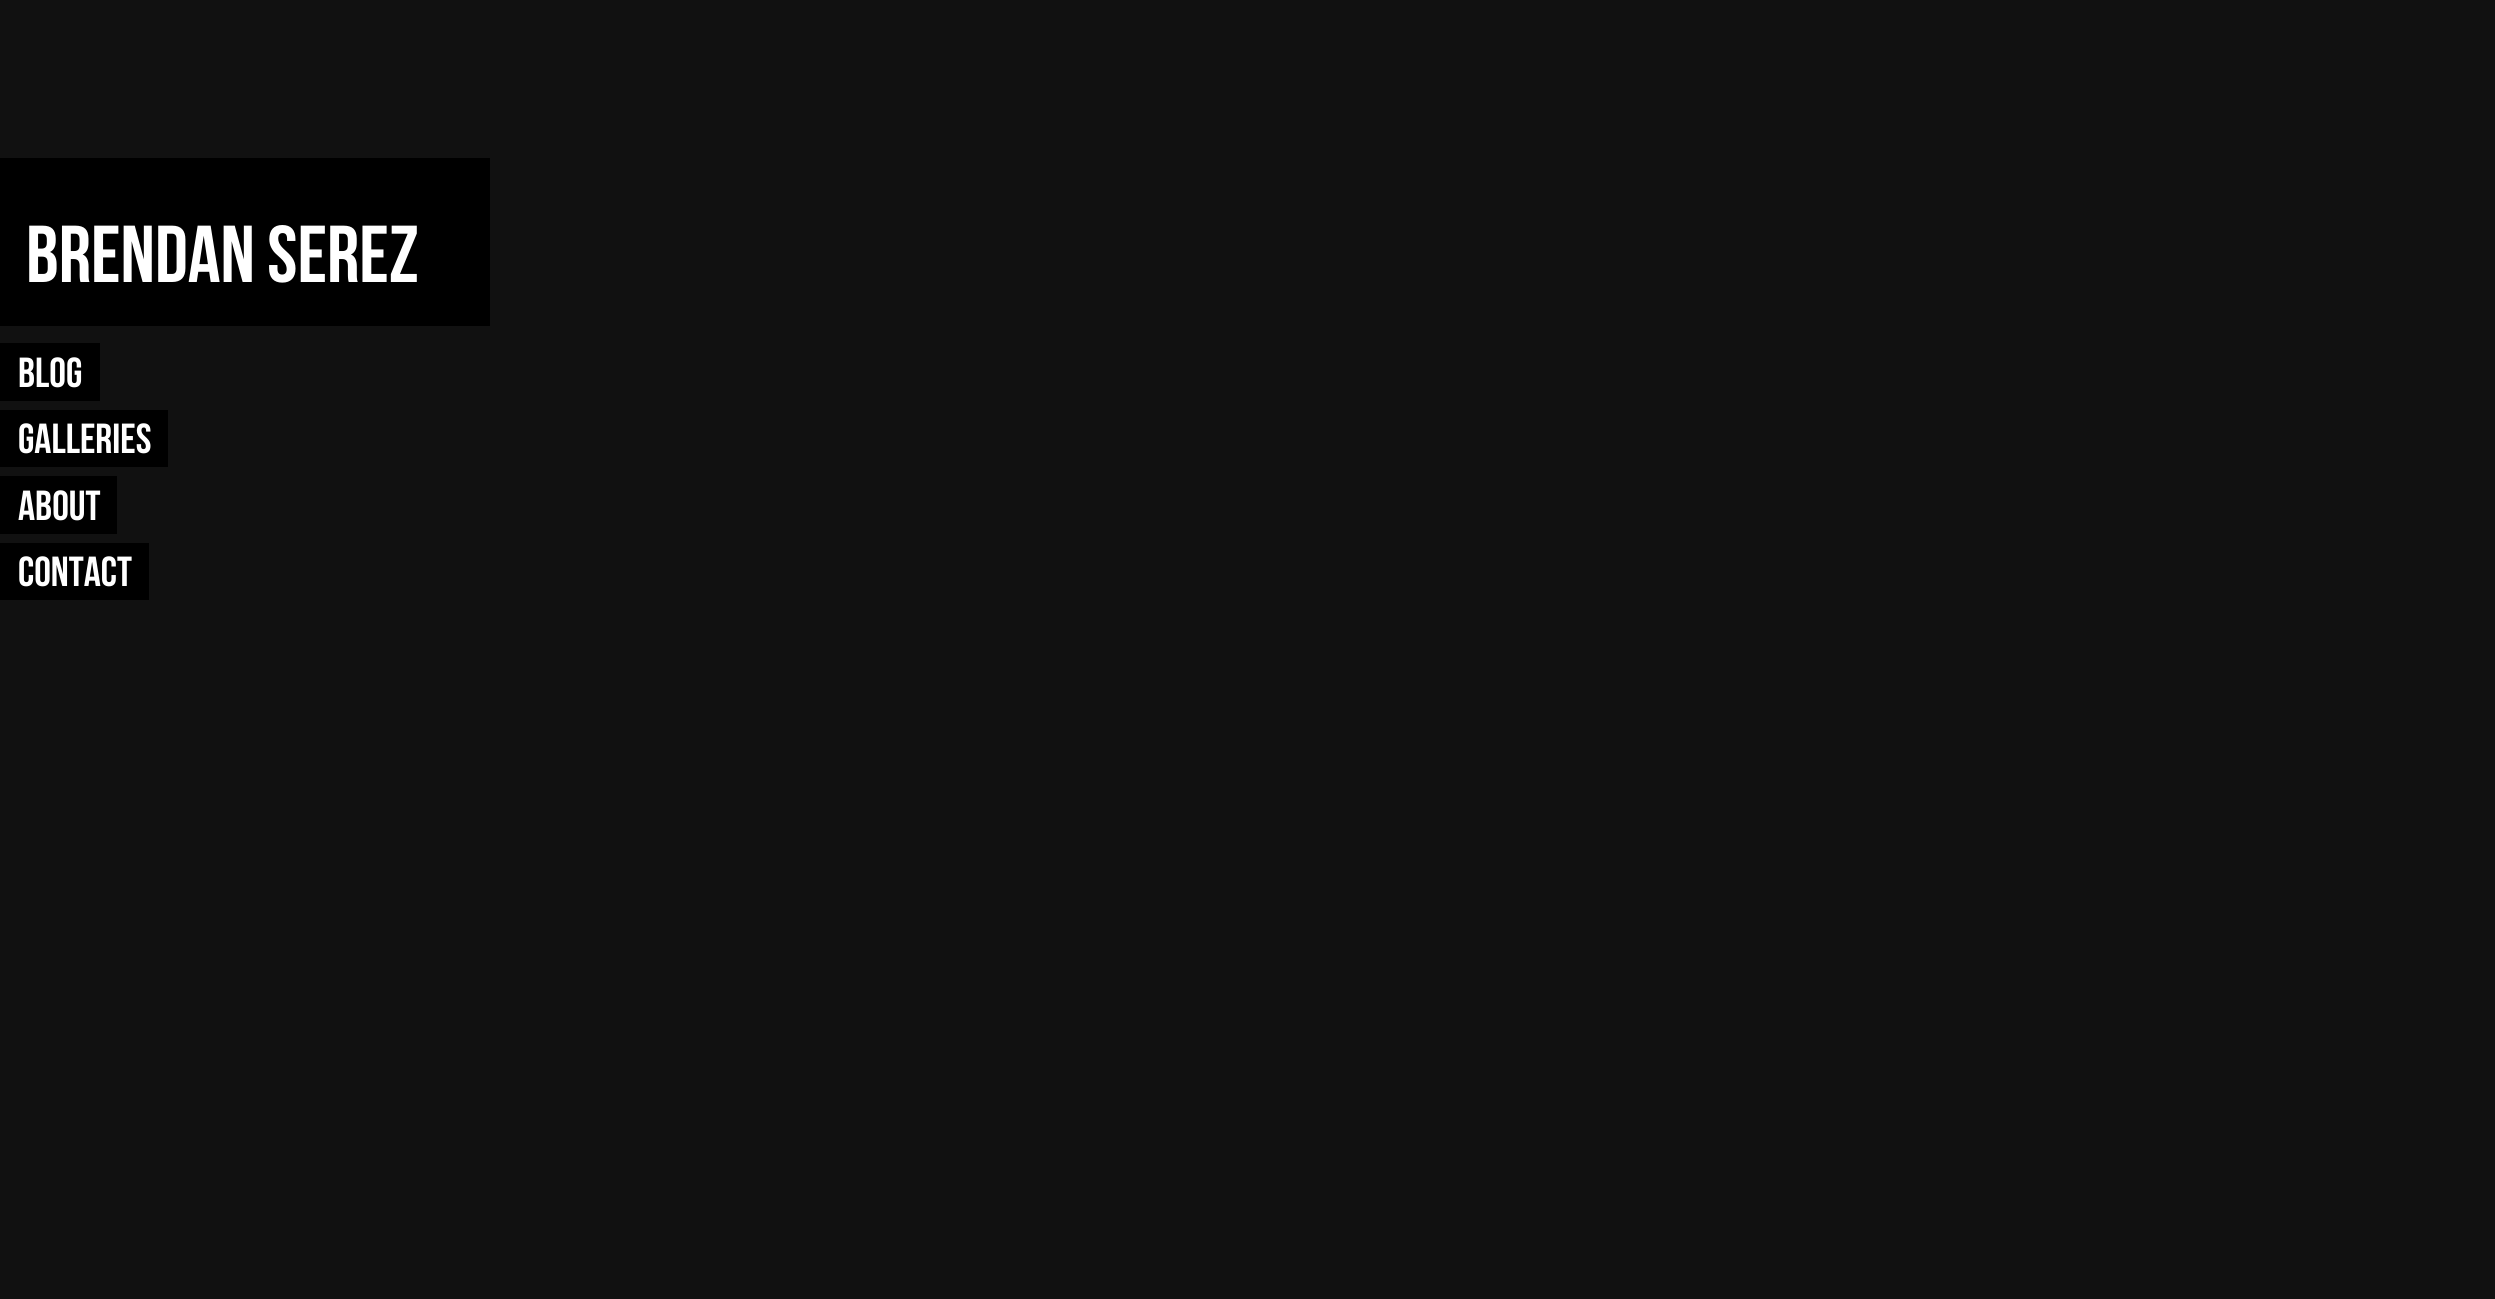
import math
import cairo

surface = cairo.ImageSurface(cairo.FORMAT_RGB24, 2495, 1299)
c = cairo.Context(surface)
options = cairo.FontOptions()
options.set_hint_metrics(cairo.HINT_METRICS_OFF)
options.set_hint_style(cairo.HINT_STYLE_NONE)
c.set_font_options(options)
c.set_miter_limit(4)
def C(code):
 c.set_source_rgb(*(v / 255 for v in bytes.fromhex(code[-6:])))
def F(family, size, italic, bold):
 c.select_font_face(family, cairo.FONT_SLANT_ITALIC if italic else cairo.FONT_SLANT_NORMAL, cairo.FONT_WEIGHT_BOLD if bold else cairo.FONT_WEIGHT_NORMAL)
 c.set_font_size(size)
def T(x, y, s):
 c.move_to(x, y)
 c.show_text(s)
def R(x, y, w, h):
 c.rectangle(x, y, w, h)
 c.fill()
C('111111')
c.paint()
C('000000')
R(0,158,490,168)
F('Bebas Neue',80.5,0,0)
C('ffffff')
T(26,282,'BRENDAN SEREZ')
C('000000')
R(0,343,100,58)
F('Bebas Neue',42,0,0)
C('ffffff')
T(18,387,'BLOG')
C('000000')
R(0,410,168,57)
C('ffffff')
T(18,453,'GALLERIES')
C('000000')
R(0,476,117,58)
C('ffffff')
T(18,520,'ABOUT')
C('000000')
R(0,543,149,57)
C('ffffff')
T(18,586,'CONTACT')
surface.write_to_png('o.png')
